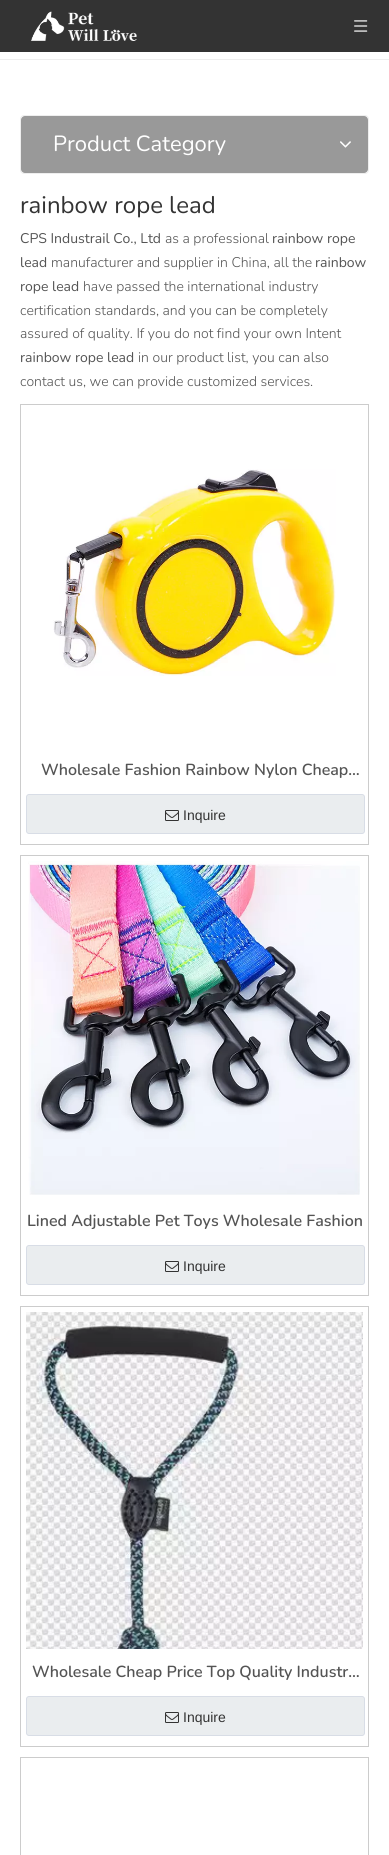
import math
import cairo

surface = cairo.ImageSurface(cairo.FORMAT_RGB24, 389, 1855)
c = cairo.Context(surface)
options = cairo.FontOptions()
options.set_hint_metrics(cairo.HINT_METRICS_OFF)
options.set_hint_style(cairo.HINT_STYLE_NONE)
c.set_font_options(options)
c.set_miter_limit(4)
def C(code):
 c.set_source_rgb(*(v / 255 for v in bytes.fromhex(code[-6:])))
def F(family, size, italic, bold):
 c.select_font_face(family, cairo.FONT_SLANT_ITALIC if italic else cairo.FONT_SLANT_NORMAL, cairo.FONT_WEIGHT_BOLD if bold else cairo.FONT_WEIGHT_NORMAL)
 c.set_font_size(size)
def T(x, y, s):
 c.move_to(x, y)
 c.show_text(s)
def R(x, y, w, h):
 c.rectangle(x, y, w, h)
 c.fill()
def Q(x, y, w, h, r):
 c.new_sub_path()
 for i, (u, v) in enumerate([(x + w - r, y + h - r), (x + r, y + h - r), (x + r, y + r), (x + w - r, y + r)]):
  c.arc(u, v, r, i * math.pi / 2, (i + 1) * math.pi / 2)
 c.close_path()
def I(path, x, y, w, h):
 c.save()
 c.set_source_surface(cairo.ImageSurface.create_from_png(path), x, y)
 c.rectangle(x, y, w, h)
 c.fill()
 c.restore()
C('ffffff')
c.paint()
C('333333')
R(0,0,389,52)
I('1.png',31,11,106,30)
I('2.png',354,20,14,12)
C('eeeeee')
R(0,59,389,1)
Q(20.5,115.5,348,58,3.5)
c.set_line_width(1)
c.stroke()
C('999999')
Q(21,116,347,57,4)
c.fill()
F('Nunito',22,0,0)
C('ffffff')
T(53,151,'Product Category')
I('3.png',340,141,11,7)
F('Nunito',24,0,0)
C('333333')
T(20,213,'rainbow rope lead')
F('Nunito',14,0,0)
C('545454')
T(20,243,'CPS Industrail Co., Ltd')
F('Nunito Light',14,0,0)
T(165,243,'as a professional')
F('Nunito',14,0,0)
T(272,243,'rainbow rope')
T(20,267,'lead')
F('Nunito Light',14,0,0)
T(51,267,'manufacturer and supplier in China, all the')
F('Nunito',14,0,0)
T(315,267,'rainbow')
T(20,291,'rope lead')
F('Nunito Light',14,0,0)
T(83,291,'have passed the international industry')
T(20,315,'certification standards, and you can be completely')
T(20,338,'assured of quality. If you do not find your own Intent')
F('Nunito',14,0,0)
T(20,362,'rainbow rope lead')
F('Nunito Light',14,0,0)
T(138,362,'in our product list, you can also')
T(20,386,'contact us, we can provide customized services.')
c.rectangle(20.5,404.5,348,440)
C('cccccc')
c.stroke()
I('4.png',53,469,283,207)
F('Nunito SemiBold',16,0,0)
C('545454')
T(41,775,'Wholesale Fashion Rainbow Nylon Cheap…')
C('eaedef')
Q(26.5,794.5,338,39,2.5)
c.fill_preserve()
C('d8dde6')
c.stroke()
I('5.png',165,810,14,11)
F('Liberation Sans',14,0,0)
C('333333')
T(183,820,'Inquire')
c.rectangle(20.5,855.5,348,440)
C('cccccc')
c.stroke()
I('6.png',28,861,332,334)
F('Nunito SemiBold',16,0,0)
C('545454')
T(27,1226,'Lined Adjustable Pet Toys Wholesale Fashion')
C('eaedef')
Q(26.5,1245.5,338,39,2.5)
c.fill_preserve()
C('d8dde6')
c.stroke()
I('5.png',165,1261,14,11)
F('Liberation Sans',14,0,0)
C('333333')
T(183,1271,'Inquire')
c.rectangle(20.5,1306.5,348,440)
C('cccccc')
c.stroke()
I('7.png',26,1312,337,337)
F('Nunito SemiBold',16,0,0)
C('545454')
T(32,1677,'Wholesale Cheap Price Top Quality Industr…')
C('eaedef')
Q(26.5,1696.5,338,39,2.5)
c.fill_preserve()
C('d8dde6')
c.stroke()
I('5.png',165,1712,14,11)
F('Liberation Sans',14,0,0)
C('333333')
T(183,1722,'Inquire')
c.rectangle(20.5,1757.5,348,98)
C('cccccc')
c.stroke()
surface.write_to_png('o.png')
